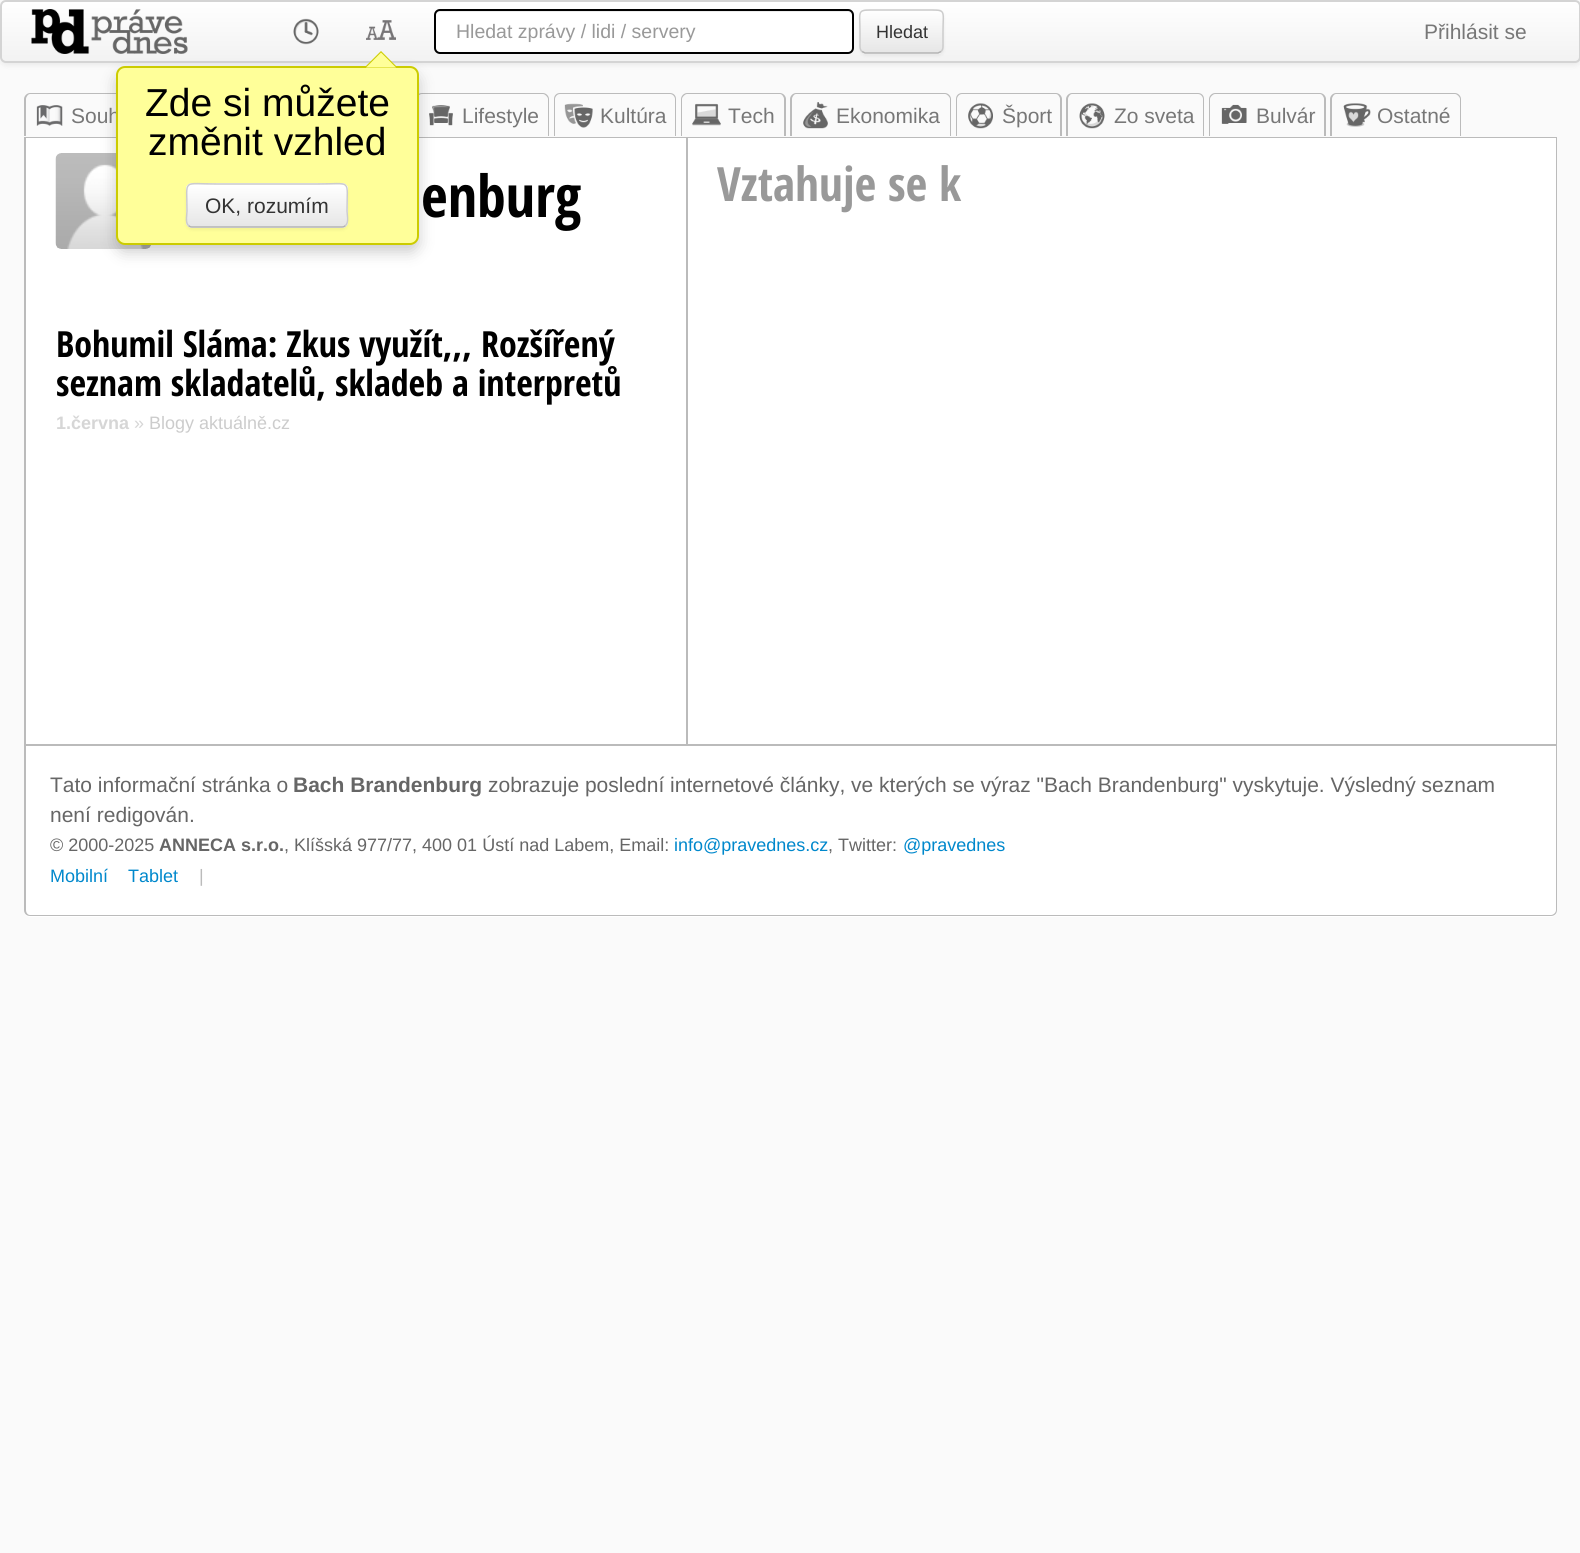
import math
import cairo

surface = cairo.ImageSurface(cairo.FORMAT_RGB24, 1580, 1553)
c = cairo.Context(surface)
options = cairo.FontOptions()
options.set_hint_metrics(cairo.HINT_METRICS_OFF)
options.set_hint_style(cairo.HINT_STYLE_NONE)
c.set_font_options(options)
c.set_miter_limit(4)
def C(code):
 c.set_source_rgb(*(v / 255 for v in bytes.fromhex(code[-6:])))
def F(family, size, italic, bold):
 c.select_font_face(family, cairo.FONT_SLANT_ITALIC if italic else cairo.FONT_SLANT_NORMAL, cairo.FONT_WEIGHT_BOLD if bold else cairo.FONT_WEIGHT_NORMAL)
 c.set_font_size(size)
def T(x, y, s):
 c.move_to(x, y)
 c.show_text(s)
def R(x, y, w, h):
 c.rectangle(x, y, w, h)
 c.fill()
def Q(x, y, w, h, r):
 c.new_sub_path()
 for i, (u, v) in enumerate([(x + w - r, y + h - r), (x + r, y + h - r), (x + r, y + r), (x + w - r, y + r)]):
  c.arc(u, v, r, i * math.pi / 2, (i + 1) * math.pi / 2)
 c.close_path()
def S(x, y, w, h, r, blur, alpha):
 c.push_group_with_content(cairo.CONTENT_ALPHA)
 c.set_operator(cairo.OPERATOR_SOURCE)
 for i in range(15, -16, -2):
  e = blur * i / 6
  if min(w, h) + 2 * e > 0:
   c.set_source_rgba(0, 0, 0, alpha * math.erfc((i - 1) / 8.5) / 2)
   Q(x - e, y - e, w + 2 * e, h + 2 * e, max(0, min(r + e + blur * .6, min(w, h) / 2 + e)))
   c.fill()
 c.mask(c.pop_group())
def I(path, x, y, w, h):
 c.save()
 c.set_source_surface(cairo.ImageSurface.create_from_png(path), x, y)
 c.rectangle(x, y, w, h)
 c.fill()
 c.restore()
C('fafafa')
c.paint()
C('000000')
S(0,2,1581,63,6,3,.07)
c.save()
Q(0,0,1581,63,6)
c.clip()
gradient = cairo.LinearGradient(791,1.5,791,62)
gradient.add_color_stop_rgba(0,1,1,1,1)
gradient.add_color_stop_rgba(1,0.949,0.949,0.949,1)
c.set_source(gradient)
R(0,2,1580,60)
c.restore()
Q(1,1,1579,61,5)
C('d4d4d4')
c.stroke()
C('ffffff')
Q(434,9,420,45,6)
c.fill()
C('ececec')
c.new_path()
c.move_to(440,12)
c.line_to(848,12)
c.curve_to(850,12,852,14,852,16)
c.curve_to(852,13,850,11,847,11)
c.line_to(440,11)
c.curve_to(437,11,435,13,435,16)
c.curve_to(435,14,437,12,440,12)
c.close_path()
c.fill()
Q(435,10,418,43,5)
C('000000')
c.stroke()
F('Liberation Sans',19.5,0,0)
C('999999')
T(456,38,'Hledat zprávy / lidi / servery')
C('000000')
S(860,11,84,45,6,1.5,.05)
C('f5f5f5')
Q(860,9,84,45,6)
c.fill()
c.save()
Q(860,9,84,45,6)
c.clip()
gradient = cairo.LinearGradient(902,10,902,53)
gradient.add_color_stop_rgba(0,1,1,1,1)
gradient.add_color_stop_rgba(1,0.902,0.902,0.902,1)
c.set_source(gradient)
R(860,11,84,42)
c.restore()
c.new_path()
c.move_to(941,51.5)
c.line_to(938,53)
c.line_to(865,53)
c.line_to(862,51.5)
C('b3b3b3')
c.set_line_width(1.5)
c.stroke()
c.new_path()
c.move_to(862,51.5)
c.curve_to(859.5,49.5,860,45.5,860,42.5)
c.line_to(860,31.5)
c.curve_to(860,9,856,10,877.5,10)
c.line_to(925.5,10)
c.curve_to(947,10,943,9,943,31.5)
c.line_to(943,42.5)
c.curve_to(943,45.5,943.5,49.5,941,51.5)
C('cccccc')
c.stroke()
F('Liberation Sans',18,0,0)
C('333333')
T(876,38,'Hledat')
F('Liberation Sans',21,0,0)
C('777777')
T(1424,39,'Přihlásit se')
I('1.png',31,9,157,45)
I('2.png',293,18,26,27)
I('3.png',366,20,30,20)
C('bbbbbb')
R(24,137,1533,1)
c.set_fill_rule(cairo.FILL_RULE_EVEN_ODD)
c.new_path()
c.move_to(30,93)
c.line_to(142,93)
c.curve_to(146,93,148,96,148,99)
c.line_to(148,136)
c.line_to(24,136)
c.line_to(24,99)
c.curve_to(24,96,27,93,30,93)
c.close_path()
c.move_to(30,94)
c.line_to(142,94)
c.curve_to(145,94,147,97,147,99)
c.line_to(147,136)
c.line_to(26,136)
c.line_to(26,99)
c.curve_to(26,97,28,94,30,94)
c.close_path()
c.fill()
c.new_path()
c.move_to(422,93)
c.line_to(543,93)
c.curve_to(546,93,549,96,549,99)
c.line_to(549,136)
c.line_to(416,136)
c.line_to(416,99)
c.curve_to(416,96,418,93,422,93)
c.close_path()
c.move_to(422,94)
c.line_to(543,94)
c.curve_to(545,94,548,97,548,99)
c.line_to(548,136)
c.line_to(417,136)
c.line_to(417,99)
c.curve_to(417,97,419,94,422,94)
c.close_path()
c.fill()
I('5.png',429,105,24,21)
C('ffffff')
c.new_path()
c.move_to(24,138)
c.line_to(1557,138)
c.line_to(1557,911)
c.curve_to(1557,914.5,1554.5,917,1551,917)
c.line_to(30,917)
c.curve_to(26.5,917,24,914.5,24,911)
c.close_path()
c.fill()
C('bbbbbb')
c.new_path()
c.move_to(24,138)
c.line_to(1557,138)
c.line_to(1557,910)
c.curve_to(1557,914,1554,916,1551,916)
c.line_to(30,916)
c.curve_to(27,916,24,914,24,910)
c.close_path()
c.move_to(26,138)
c.line_to(1556,138)
c.line_to(1556,910)
c.curve_to(1556,913,1553,915,1551,915)
c.line_to(30,915)
c.curve_to(28,915,26,913,26,910)
c.close_path()
c.fill()
I('13.png',55,153,96,96)
C('000000')
S(116,74,303,178,9,7.5,.2)
C('777777')
T(71,123,'Souh')
C('ffff99')
Q(117,67,301,177,8)
c.fill_preserve()
C('cccc00')
c.set_line_width(2)
c.stroke()
c.set_fill_rule(cairo.FILL_RULE_WINDING)
c.new_path()
c.move_to(397.5,67.5)
c.line_to(364.5,67.5)
c.line_to(381,51)
c.close_path()
c.fill()
C('ffff99')
c.new_path()
c.move_to(396,67.5)
c.line_to(366,67.5)
c.line_to(381,52.5)
c.close_path()
c.fill()
F('Liberation Sans',39,0,0)
C('000000')
T(145,116,'Zde si můžete')
T(148,155,'změnit vzhled')
C('000000')
S(186,185,162,45,6,1.5,.05)
C('f5f5f5')
Q(186,183,162,45,6)
c.fill()
c.save()
Q(186,183,162,45,6)
c.clip()
gradient = cairo.LinearGradient(267,185,267,227)
gradient.add_color_stop_rgba(0,1,1,1,1)
gradient.add_color_stop_rgba(1,0.902,0.902,0.902,1)
c.set_source(gradient)
R(186,185,162,42)
c.restore()
c.set_source_rgba(1,1,1,0.2)
c.new_path()
c.move_to(192,186)
c.line_to(342,186)
c.curve_to(344,186,346,188,346,190)
c.line_to(346,225)
c.curve_to(347,224,347,223,347,222)
c.line_to(347,190)
c.curve_to(347,187,345,185,342,185)
c.line_to(193,185)
c.curve_to(190,185,188,187,188,190)
c.curve_to(188,188,190,186,192,186)
c.close_path()
c.fill()
c.new_path()
c.move_to(345.5,225.5)
c.curve_to(344.5,226.5,343.5,227,342,227)
c.line_to(192,227)
c.curve_to(190.5,227,189.5,226.5,188.5,225.5)
C('b3b3b3')
c.set_line_width(1.5)
c.stroke()
c.new_path()
c.move_to(188.5,225.5)
c.curve_to(185,222.5,187,214.5,187,211)
c.curve_to(187,178,181.5,184,217,184)
c.line_to(317,184)
c.curve_to(352.5,184,347,178,347,211)
c.curve_to(347,214.5,349,222.5,345.5,225.5)
C('cccccc')
c.stroke()
F('Liberation Sans',21,0,0)
C('333333')
T(205,213,'OK, rozumím')
I('4.png',36,105,27,21)
C('777777')
T(462,123,'Lifestyle')
C('bbbbbb')
c.set_fill_rule(cairo.FILL_RULE_EVEN_ODD)
c.new_path()
c.move_to(560,93)
c.line_to(670,93)
c.curve_to(674,93,676,96,676,99)
c.line_to(676,136)
c.line_to(554,136)
c.line_to(554,99)
c.curve_to(554,96,556,93,560,93)
c.close_path()
c.move_to(560,94)
c.line_to(670,94)
c.curve_to(673,94,675,97,675,99)
c.line_to(675,136)
c.line_to(555,136)
c.line_to(555,99)
c.curve_to(555,97,557,94,560,94)
c.close_path()
c.fill()
I('6.png',564,103,29,25)
C('777777')
T(600,123,'Kultúra')
C('bbbbbb')
c.new_path()
c.move_to(687,93)
c.line_to(780,93)
c.curve_to(783,93,786,96,786,99)
c.line_to(786,136)
c.line_to(681,136)
c.line_to(681,99)
c.curve_to(681,96,684,93,687,93)
c.close_path()
c.move_to(687,94)
c.line_to(780,94)
c.curve_to(782,94,784,97,784,99)
c.line_to(784,136)
c.line_to(682,136)
c.line_to(682,99)
c.curve_to(682,97,685,94,687,94)
c.close_path()
c.fill()
I('7.png',692,103,29,23)
C('777777')
T(728,123,'Tech')
C('bbbbbb')
c.new_path()
c.move_to(796,93)
c.line_to(945,93)
c.curve_to(948,93,951,96,951,99)
c.line_to(951,136)
c.line_to(790,136)
c.line_to(790,99)
c.curve_to(790,96,793,93,796,93)
c.close_path()
c.move_to(796,94)
c.line_to(945,94)
c.curve_to(947,94,950,97,950,99)
c.line_to(950,136)
c.line_to(792,136)
c.line_to(792,99)
c.curve_to(792,97,794,94,796,94)
c.close_path()
c.fill()
I('8.png',803,102,25,27)
C('777777')
T(836,123,'Ekonomika')
C('bbbbbb')
c.new_path()
c.move_to(962,93)
c.line_to(1056,93)
c.curve_to(1059,93,1062,96,1062,99)
c.line_to(1062,136)
c.line_to(956,136)
c.line_to(956,99)
c.curve_to(956,96,958,93,962,93)
c.close_path()
c.move_to(962,94)
c.line_to(1056,94)
c.curve_to(1058,94,1060,97,1060,99)
c.line_to(1060,136)
c.line_to(957,136)
c.line_to(957,99)
c.curve_to(957,97,959,94,962,94)
c.close_path()
c.fill()
I('9.png',968,103,25,26)
C('777777')
T(1002,123,'Šport')
C('bbbbbb')
c.new_path()
c.move_to(1072,93)
c.line_to(1198,93)
c.curve_to(1202,93,1204,96,1204,99)
c.line_to(1204,136)
c.line_to(1066,136)
c.line_to(1066,99)
c.curve_to(1066,96,1069,93,1072,93)
c.close_path()
c.move_to(1072,94)
c.line_to(1198,94)
c.curve_to(1201,94,1203,97,1203,99)
c.line_to(1203,136)
c.line_to(1068,136)
c.line_to(1068,99)
c.curve_to(1068,97,1070,94,1072,94)
c.close_path()
c.fill()
I('10.png',1079,103,26,26)
C('777777')
T(1114,123,'Zo sveta')
C('bbbbbb')
c.new_path()
c.move_to(1215,93)
c.line_to(1320,93)
c.curve_to(1323,93,1326,96,1326,99)
c.line_to(1326,136)
c.line_to(1209,136)
c.line_to(1209,99)
c.curve_to(1209,96,1212,93,1215,93)
c.close_path()
c.move_to(1215,94)
c.line_to(1320,94)
c.curve_to(1322,94,1324,97,1324,99)
c.line_to(1324,136)
c.line_to(1210,136)
c.line_to(1210,99)
c.curve_to(1210,97,1213,94,1215,94)
c.close_path()
c.fill()
I('11.png',1221,104,26,20)
C('777777')
T(1256,123,'Bulvár')
C('bbbbbb')
c.new_path()
c.move_to(1336,93)
c.line_to(1455,93)
c.curve_to(1458,93,1461,96,1461,99)
c.line_to(1461,136)
c.line_to(1330,136)
c.line_to(1330,99)
c.curve_to(1330,96,1333,93,1336,93)
c.close_path()
c.move_to(1336,94)
c.line_to(1455,94)
c.curve_to(1457,94,1460,97,1460,99)
c.line_to(1460,136)
c.line_to(1332,136)
c.line_to(1332,99)
c.curve_to(1332,97,1334,94,1336,94)
c.close_path()
c.fill()
I('12.png',1343,103,28,24)
C('777777')
T(1377,123,'Ostatné')
F('Open Sans Condensed',58,0,1)
C('000000')
T(421,217,'enburg')
F('Open Sans Condensed',47.25,0,1)
C('999999')
T(717,201,'Vztahuje se k')
F('Open Sans Condensed',36,0,1)
C('000000')
T(56,357,'Bohumil Sláma: Zkus využít,,, Rozšířený')
T(56,396,'seznam skladatelů, skladeb a interpretů')
F('Liberation Sans',18,0,1)
C('d6d6d6')
T(56,429,'1.června')
F('Liberation Sans',18,0,0)
T(134,429,'»')
C('cccccc')
T(149,429,'Blogy aktuálně.cz')
C('bbbbbb')
R(686,138,2,608)
R(26,744,1530,2)
F('Liberation Sans',21,0,0)
C('666666')
T(50,792,'Tato informační stránka o')
F('Liberation Sans',21,0,1)
T(293,792,'Bach Brandenburg')
F('Liberation Sans',21,0,0)
T(488,792,'zobrazuje poslední internetové články, ve kterých se výraz "Bach Brandenburg" vyskytuje. Výsledný seznam')
T(50,822,'není redigován.')
F('Liberation Sans',18,0,0)
T(50,851,'© 2000-2025')
F('Liberation Sans',18,0,1)
T(159,851,'ANNECA s.r.o.')
F('Liberation Sans',18,0,0)
T(284,851,', Klíšská 977/77, 400 01 Ústí nad Labem, Email:')
C('0088cc')
T(674,851,'info@pravednes.cz')
C('666666')
T(828,851,', Twitter:')
C('0088cc')
T(903,851,'@pravednes')
T(50,882,'Mobilní')
T(128,882,'Tablet')
C('bbbbbb')
T(199,882,'|')
surface.write_to_png('o.png')
